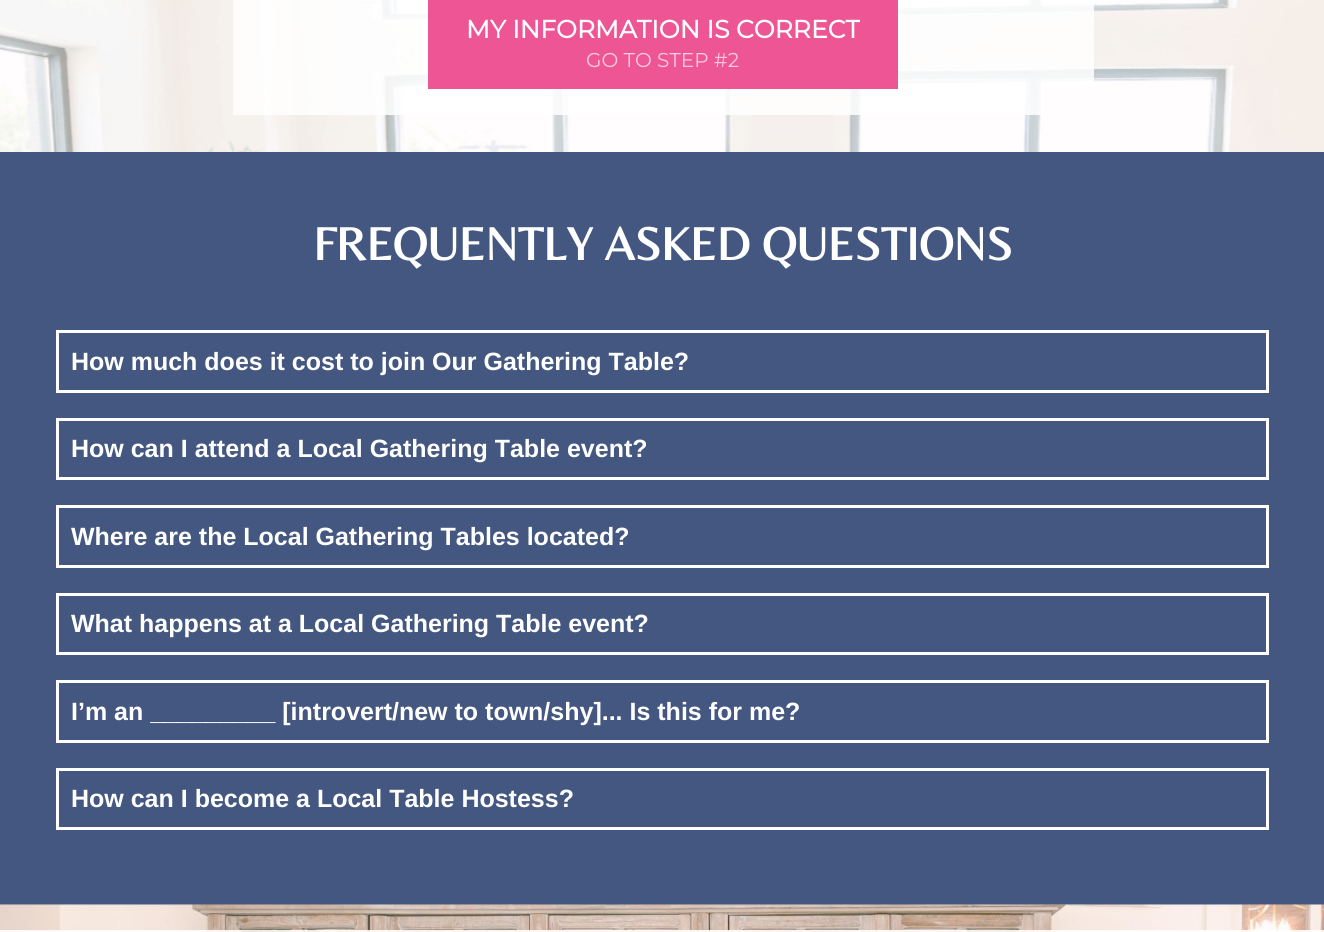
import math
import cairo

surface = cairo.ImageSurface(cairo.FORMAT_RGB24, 1324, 932)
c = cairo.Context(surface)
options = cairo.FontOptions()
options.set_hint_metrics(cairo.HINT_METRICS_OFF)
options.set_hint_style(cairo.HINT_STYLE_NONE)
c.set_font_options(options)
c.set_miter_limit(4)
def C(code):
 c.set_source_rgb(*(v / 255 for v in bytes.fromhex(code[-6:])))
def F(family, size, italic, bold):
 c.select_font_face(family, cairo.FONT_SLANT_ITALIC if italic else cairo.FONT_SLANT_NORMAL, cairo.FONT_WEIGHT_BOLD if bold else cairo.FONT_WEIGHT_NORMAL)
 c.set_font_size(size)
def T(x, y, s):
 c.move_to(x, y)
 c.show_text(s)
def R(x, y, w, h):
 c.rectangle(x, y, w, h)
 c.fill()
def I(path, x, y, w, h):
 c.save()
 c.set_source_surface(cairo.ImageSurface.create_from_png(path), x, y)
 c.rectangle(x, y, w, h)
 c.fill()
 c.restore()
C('435780')
c.paint()
I('1.png',0,0,1324,152)
c.set_source_rgba(1,1,1,0.85)
R(233,0,861,89)
C('ed5595')
R(428,0,470,89)
F('Montserrat',25,0,1)
C('ffffff')
T(466,38,'MY INFORMATION IS CORRECT')
F('Montserrat Thin',20,0,0)
C('faccdf')
T(586,67,'GO TO STEP #2')
c.set_source_rgba(1,1,1,0.85)
R(233,89,811,26)
F('Belleza',47.5,0,1)
C('ffffff')
T(313,260,'FREQUENTLY ASKED QUESTIONS')
c.rectangle(57.5,331.5,1210,60)
c.set_line_width(3)
c.stroke()
F('Liberation Sans',25,0,1)
T(71,370,'How much does it cost to join Our Gathering Table?')
c.rectangle(57.5,419.5,1210,59)
c.stroke()
T(71,457,'How can I attend a Local Gathering Table event?')
c.rectangle(57.5,506.5,1210,60)
c.stroke()
T(71,545,'Where are the Local Gathering Tables located?')
c.rectangle(57.5,594.5,1210,59)
c.stroke()
T(71,632,'What happens at a Local Gathering Table event?')
c.rectangle(57.5,681.5,1210,60)
c.stroke()
T(71,720,'I’m an _________ [introvert/new to town/shy]... Is this for me?')
c.rectangle(57.5,769.5,1210,59)
c.stroke()
T(71,807,'How can I become a Local Table Hostess?')
I('2.png',0,904,1324,28)
c.set_source_rgba(1,1,1,0.88)
R(0,930,1324,2)
surface.write_to_png('o.png')
